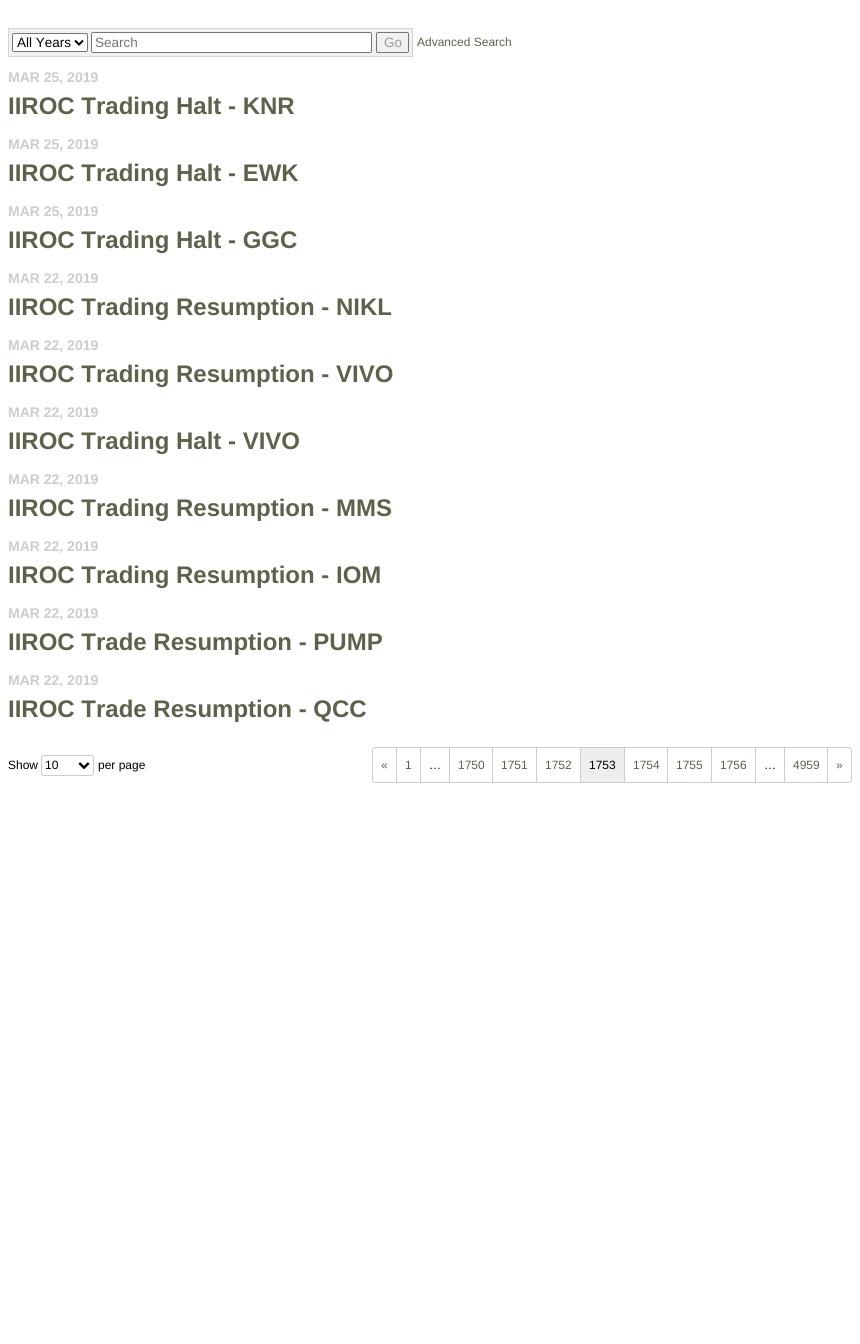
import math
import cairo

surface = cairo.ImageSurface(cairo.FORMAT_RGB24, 860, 1344)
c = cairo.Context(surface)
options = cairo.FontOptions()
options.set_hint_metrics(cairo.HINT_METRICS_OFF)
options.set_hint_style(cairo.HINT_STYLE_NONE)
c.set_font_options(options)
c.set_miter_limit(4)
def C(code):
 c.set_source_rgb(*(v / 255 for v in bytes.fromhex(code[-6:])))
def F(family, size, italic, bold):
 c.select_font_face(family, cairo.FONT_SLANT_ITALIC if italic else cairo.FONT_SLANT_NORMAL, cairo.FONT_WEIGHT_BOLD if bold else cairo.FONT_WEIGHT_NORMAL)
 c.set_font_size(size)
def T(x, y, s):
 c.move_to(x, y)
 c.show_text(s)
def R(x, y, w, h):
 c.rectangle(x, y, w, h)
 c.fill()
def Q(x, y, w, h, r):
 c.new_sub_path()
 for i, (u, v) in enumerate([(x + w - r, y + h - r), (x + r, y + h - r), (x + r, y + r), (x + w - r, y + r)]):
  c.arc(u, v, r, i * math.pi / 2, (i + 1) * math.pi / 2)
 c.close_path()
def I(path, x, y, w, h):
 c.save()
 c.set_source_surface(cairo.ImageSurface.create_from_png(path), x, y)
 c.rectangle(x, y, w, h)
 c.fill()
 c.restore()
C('ffffff')
c.paint()
C('f1f1f1')
c.rectangle(8.5,28.5,404,28)
c.fill_preserve()
C('d3d3d3')
c.set_line_width(1)
c.stroke()
C('ffffff')
Q(12.5,33.5,75,18,1.5)
c.fill_preserve()
C('767676')
c.stroke()
c.new_path()
c.move_to(75,40.5)
c.line_to(79,44.5)
c.line_to(83,40.5)
C('000000')
c.set_line_width(2)
c.stroke()
F('Liberation Sans',13.5,0,0)
T(17,47,'All Years')
C('ffffff')
Q(91.5,32.5,280,20,1.5)
c.fill_preserve()
C('767676')
c.set_line_width(1)
c.stroke()
C('757575')
T(95,47,'Search')
Q(376.5,32.5,32,20,1.5)
C('767676')
c.stroke()
C('999999')
T(384,47,'Go')
F('Liberation Sans',12,0,0)
C('60604d')
T(417,46,'Advanced Search')
F('Liberation Sans',14,0,1)
C('cccccc')
T(8,82,'MAR 25, 2019')
F('Liberation Sans',24,0,1)
C('60604d')
T(8,114,'IIROC Trading Halt - KNR')
F('Liberation Sans',14,0,1)
C('cccccc')
T(8,149,'MAR 25, 2019')
F('Liberation Sans',24,0,1)
C('60604d')
T(8,181,'IIROC Trading Halt - EWK')
F('Liberation Sans',14,0,1)
C('cccccc')
T(8,216,'MAR 25, 2019')
F('Liberation Sans',24,0,1)
C('60604d')
T(8,248,'IIROC Trading Halt - GGC')
F('Liberation Sans',14,0,1)
C('cccccc')
T(8,283,'MAR 22, 2019')
F('Liberation Sans',24,0,1)
C('60604d')
T(8,315,'IIROC Trading Resumption - NIKL')
F('Liberation Sans',14,0,1)
C('cccccc')
T(8,350,'MAR 22, 2019')
F('Liberation Sans',24,0,1)
C('60604d')
T(8,382,'IIROC Trading Resumption - VIVO')
F('Liberation Sans',14,0,1)
C('cccccc')
T(8,417,'MAR 22, 2019')
F('Liberation Sans',24,0,1)
C('60604d')
T(8,449,'IIROC Trading Halt - VIVO')
F('Liberation Sans',14,0,1)
C('cccccc')
T(8,484,'MAR 22, 2019')
F('Liberation Sans',24,0,1)
C('60604d')
T(8,516,'IIROC Trading Resumption - MMS')
F('Liberation Sans',14,0,1)
C('cccccc')
T(8,551,'MAR 22, 2019')
F('Liberation Sans',24,0,1)
C('60604d')
T(8,583,'IIROC Trading Resumption - IOM')
F('Liberation Sans',14,0,1)
C('cccccc')
T(8,618,'MAR 22, 2019')
F('Liberation Sans',24,0,1)
C('60604d')
T(8,650,'IIROC Trade Resumption - PUMP')
F('Liberation Sans',14,0,1)
C('cccccc')
T(8,685,'MAR 22, 2019')
F('Liberation Sans',24,0,1)
C('60604d')
T(8,717,'IIROC Trade Resumption - QCC')
F('Liberation Sans',12,0,0)
C('000000')
T(8,769,'Show')
Q(41.5,755.5,52,20,2.5)
C('cccccc')
c.stroke()
C('000000')
T(45,769,'10')
I('1.png',78,762,12,8)
T(98,769,'per page')
c.new_path()
c.move_to(375,747.5)
c.line_to(396.5,747.5)
c.line_to(396.5,782.5)
c.line_to(375,782.5)
c.curve_to(373.5,782.5,372.5,781.5,372.5,780)
c.line_to(372.5,750)
c.curve_to(372.5,748.5,373.5,747.5,375,747.5)
c.close_path()
C('cccccc')
c.stroke()
C('60604d')
T(381,769,'«')
C('cccccc')
R(397,747,431,1)
R(420,747,1,36)
R(397,782,24,1)
C('60604d')
T(405,769,'1')
C('cccccc')
R(449,747,1,36)
R(421,782,29,1)
C('000000')
T(429,769,'…')
C('cccccc')
R(492,747,1,36)
R(450,782,43,1)
C('60604d')
T(458,769,'1750')
C('cccccc')
R(536,747,1,36)
R(493,782,44,1)
C('60604d')
T(501,769,'1751')
C('cccccc')
R(580,747,1,36)
R(537,782,44,1)
C('60604d')
T(545,769,'1752')
C('eeeeee')
R(581,748,43,34)
C('cccccc')
R(624,747,1,36)
R(581,782,44,1)
C('000000')
T(589,769,'1753')
C('cccccc')
R(667,747,1,36)
R(625,782,43,1)
C('60604d')
T(633,769,'1754')
C('cccccc')
R(711,747,1,36)
R(668,782,44,1)
C('60604d')
T(676,769,'1755')
C('cccccc')
R(755,747,1,36)
R(712,782,44,1)
C('60604d')
T(720,769,'1756')
C('cccccc')
R(784,747,1,36)
R(756,782,29,1)
C('000000')
T(764,769,'…')
C('cccccc')
R(827,747,1,36)
R(785,782,43,1)
C('60604d')
T(793,769,'4959')
C('cccccc')
c.set_fill_rule(cairo.FILL_RULE_EVEN_ODD)
c.new_path()
c.move_to(828,747)
c.line_to(849,747)
c.curve_to(850.5,747,852,748.5,852,750)
c.line_to(852,780)
c.curve_to(852,781.5,850.5,783,849,783)
c.line_to(828,783)
c.close_path()
c.move_to(828,748)
c.line_to(849,748)
c.curve_to(850,748,851,749,851,750)
c.line_to(851,780)
c.curve_to(851,781,850,782,849,782)
c.line_to(828,782)
c.close_path()
c.fill()
C('60604d')
T(836,769,'»')
surface.write_to_png('o.png')
